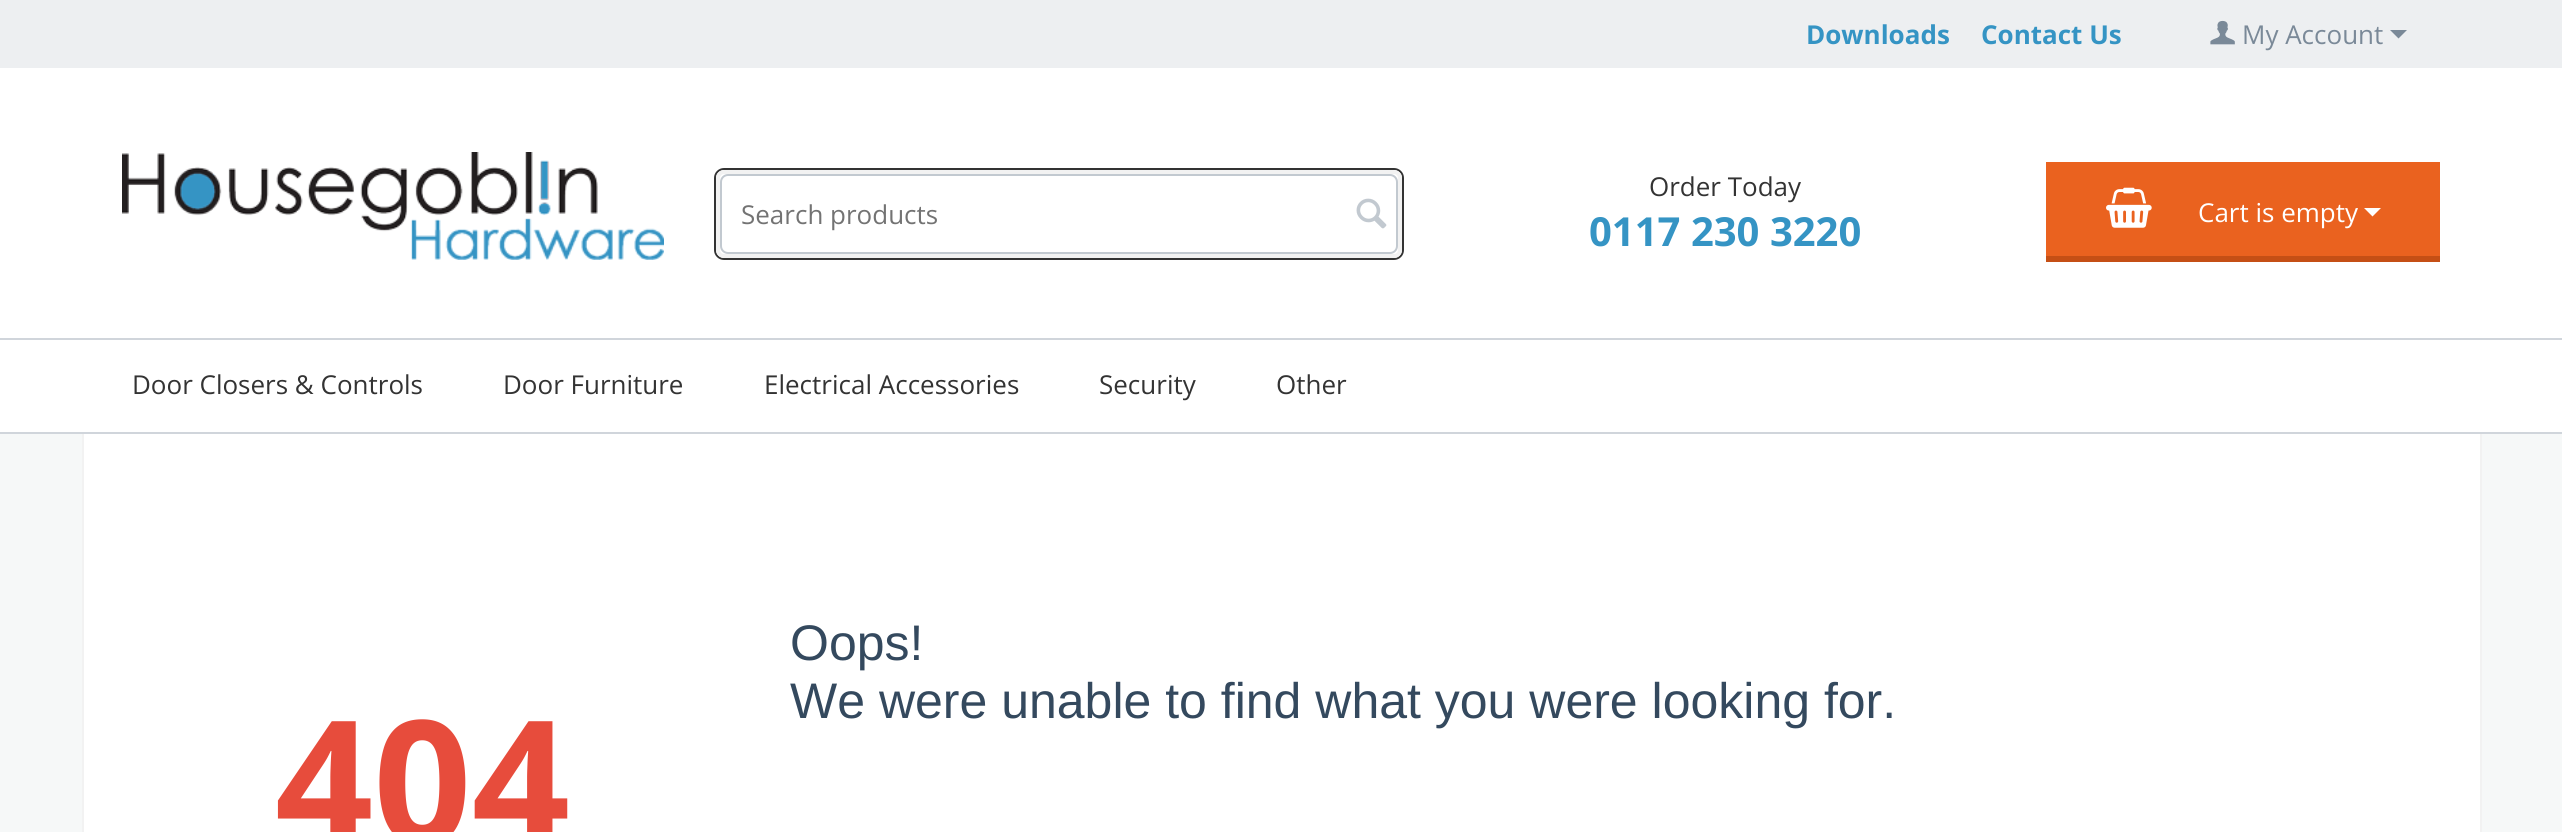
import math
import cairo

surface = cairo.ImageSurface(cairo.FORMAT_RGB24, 2562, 832)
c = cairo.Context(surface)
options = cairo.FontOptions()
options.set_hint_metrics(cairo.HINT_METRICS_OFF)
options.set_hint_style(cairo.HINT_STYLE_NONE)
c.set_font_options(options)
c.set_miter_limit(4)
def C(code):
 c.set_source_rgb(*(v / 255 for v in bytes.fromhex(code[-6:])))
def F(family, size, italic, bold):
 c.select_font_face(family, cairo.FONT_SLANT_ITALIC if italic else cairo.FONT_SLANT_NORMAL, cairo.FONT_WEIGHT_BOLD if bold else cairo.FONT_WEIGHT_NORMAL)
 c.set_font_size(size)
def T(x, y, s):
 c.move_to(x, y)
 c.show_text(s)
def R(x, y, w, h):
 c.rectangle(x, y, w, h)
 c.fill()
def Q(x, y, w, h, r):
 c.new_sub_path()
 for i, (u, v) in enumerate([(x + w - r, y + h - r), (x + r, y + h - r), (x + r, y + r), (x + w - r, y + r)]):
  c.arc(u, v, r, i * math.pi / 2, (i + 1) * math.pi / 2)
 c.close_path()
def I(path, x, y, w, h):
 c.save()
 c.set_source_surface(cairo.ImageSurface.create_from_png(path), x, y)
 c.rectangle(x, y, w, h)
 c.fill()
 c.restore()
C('f6f8f8')
c.paint()
C('edeff1')
R(0,0,2562,68)
F('Open Sans',26,0,1)
C('3594c4')
T(1806,44,'Downloads')
T(1981,44,'Contact Us')
I('1.png',2210,20,25,25)
F('Open Sans',26,0,0)
C('7a8998')
T(2242,44,'My Account')
c.new_path()
c.move_to(2398.5,38.5)
c.line_to(2390,30)
c.line_to(2407,30)
c.close_path()
c.fill()
C('ffffff')
R(0,68,2562,364)
I('2.png',122,152,542,108)
Q(715,169,688,90,9)
C('333333')
c.stroke()
Q(718,172,682,84,6)
C('f2f2f2')
c.set_line_width(4)
c.stroke()
Q(721,175,676,78,7)
C('c2c9d0')
c.set_line_width(2)
c.stroke()
C('737373')
T(741,224,'Search products')
I('3.png',1356,198,31,31)
C('333333')
T(1649,196,'Order Today')
F('Open Sans',40,0,1)
C('3594c4')
T(1589,246,'0117 230 3220')
C('ea621f')
R(2046,162,394,94)
C('c54f15')
R(2046,256,394,6)
I('4.png',2106,187,46,41)
F('Open Sans',26,0,0)
C('ffffff')
T(2198,222,'Cart is empty')
c.new_path()
c.move_to(2372.5,216.5)
c.line_to(2364,208)
c.line_to(2381,208)
c.close_path()
c.fill()
C('d0d5db')
R(0,338,2562,2)
R(0,432,2562,2)
C('333333')
T(132,394,'Door Closers & Controls')
T(503,394,'Door Furniture')
T(764,394,'Electrical Accessories')
T(1099,394,'Security')
T(1276,394,'Other')
C('ffffff')
R(84,434,2396,398)
C('f2f2f2')
R(2480,434,2,398)
R(82,434,2,398)
F('Liberation Sans',50,0,0)
C('34495e')
T(790,660,'Oops!')
T(790,718,'We were unable to find what you were looking for.')
F('Open Sans',172,0,1)
C('e74c3c')
T(275,844,'404')
surface.write_to_png('o.png')
